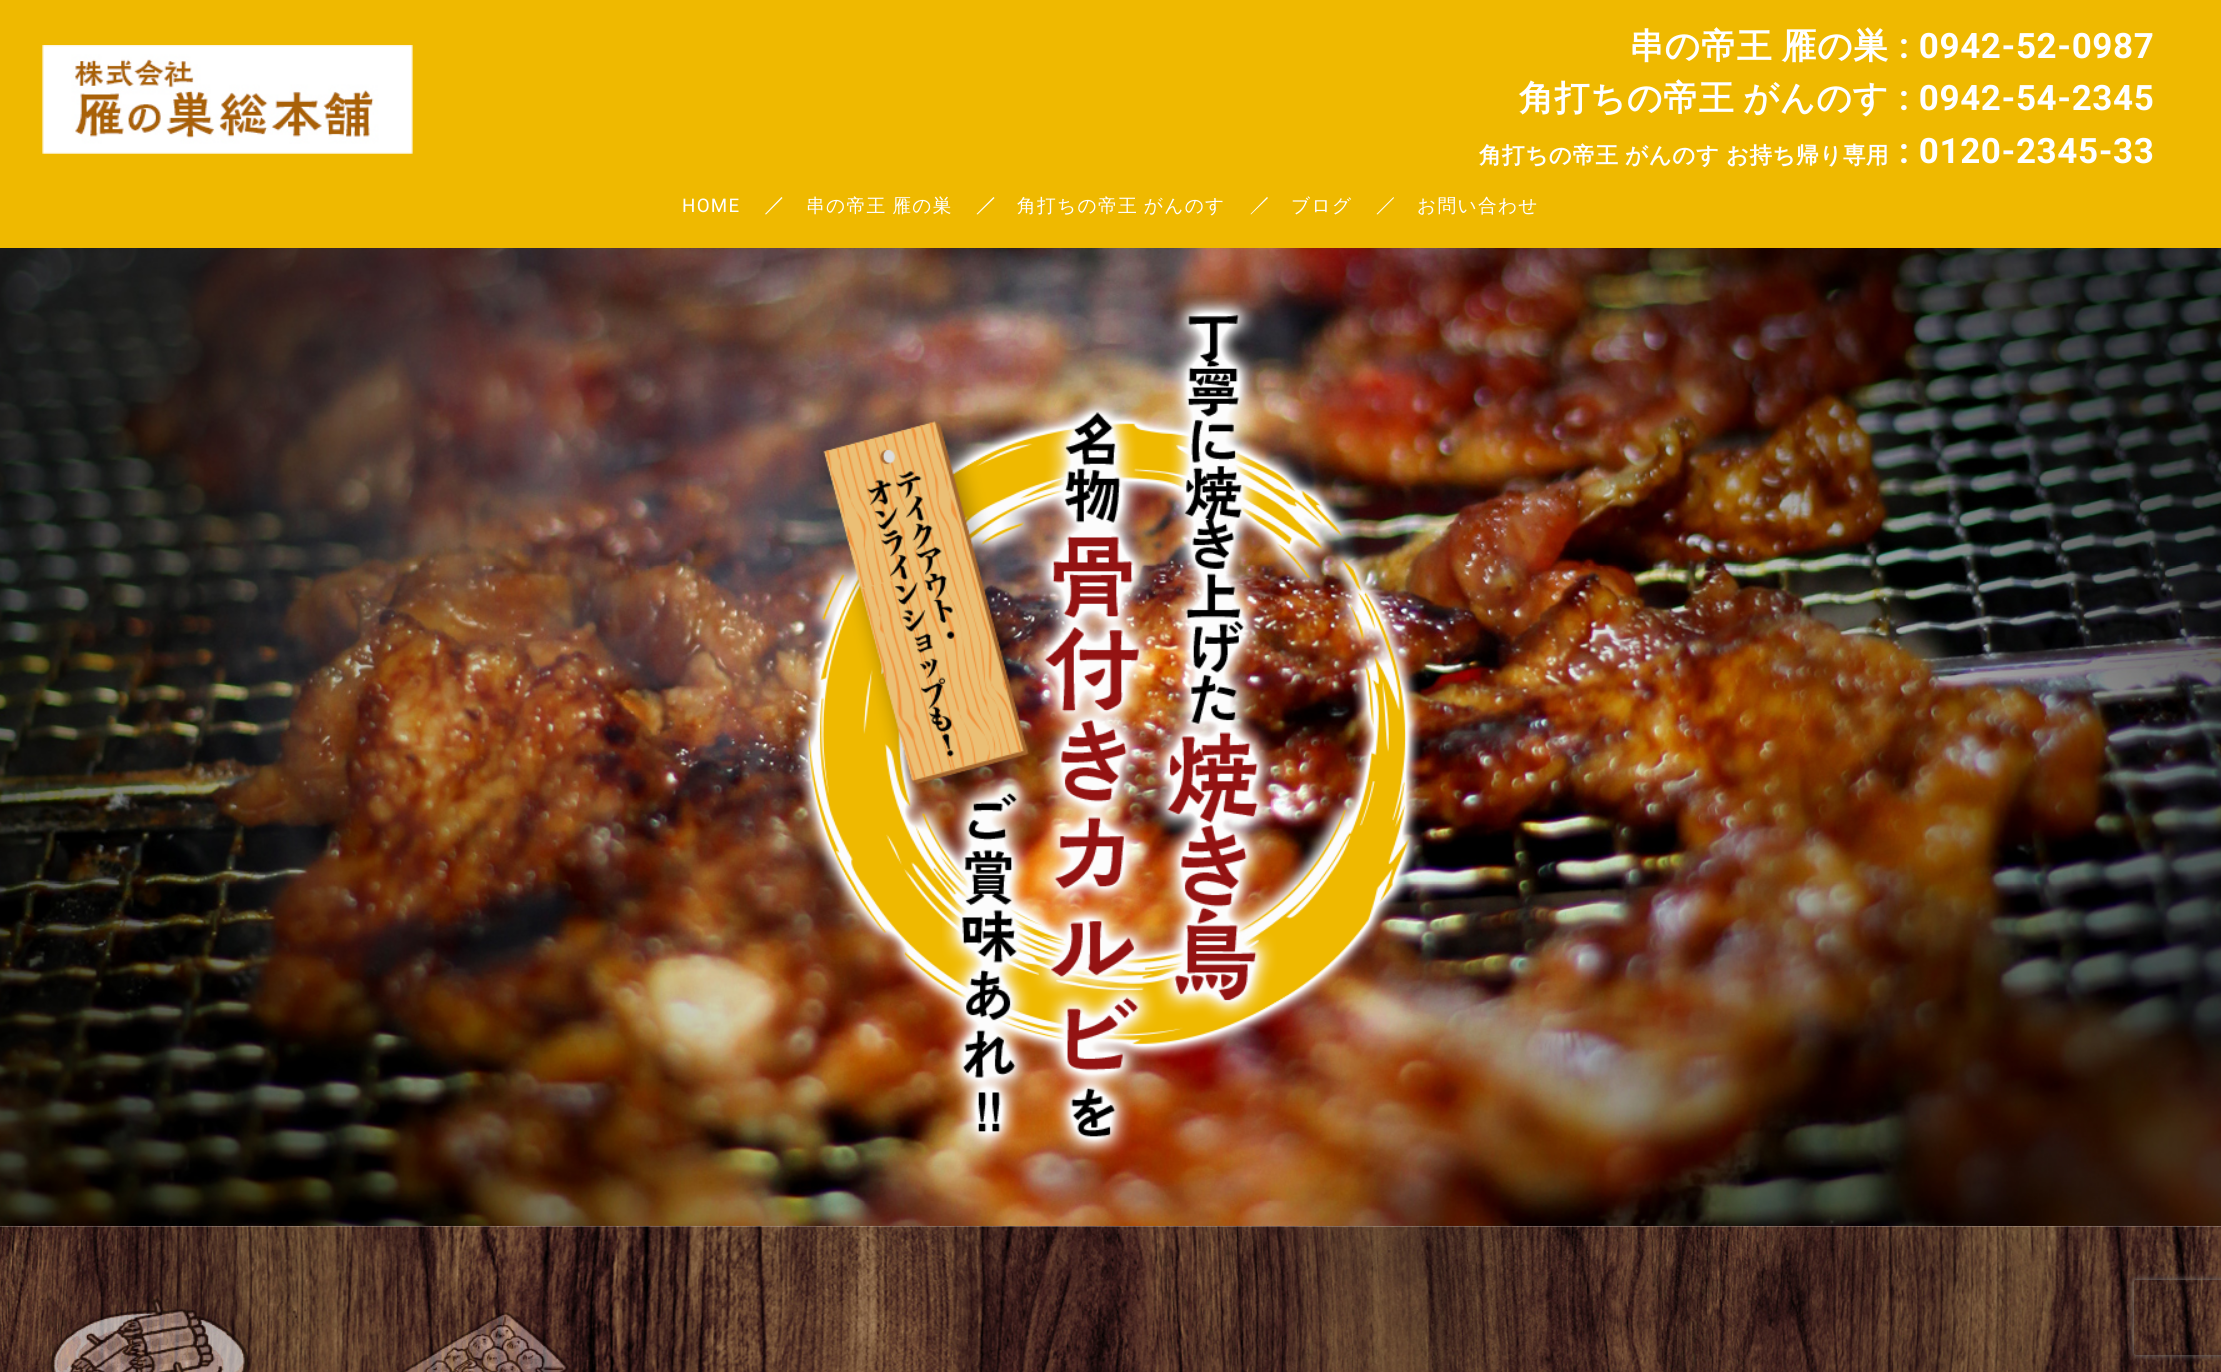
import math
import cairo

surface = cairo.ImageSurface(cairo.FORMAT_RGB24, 2221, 1372)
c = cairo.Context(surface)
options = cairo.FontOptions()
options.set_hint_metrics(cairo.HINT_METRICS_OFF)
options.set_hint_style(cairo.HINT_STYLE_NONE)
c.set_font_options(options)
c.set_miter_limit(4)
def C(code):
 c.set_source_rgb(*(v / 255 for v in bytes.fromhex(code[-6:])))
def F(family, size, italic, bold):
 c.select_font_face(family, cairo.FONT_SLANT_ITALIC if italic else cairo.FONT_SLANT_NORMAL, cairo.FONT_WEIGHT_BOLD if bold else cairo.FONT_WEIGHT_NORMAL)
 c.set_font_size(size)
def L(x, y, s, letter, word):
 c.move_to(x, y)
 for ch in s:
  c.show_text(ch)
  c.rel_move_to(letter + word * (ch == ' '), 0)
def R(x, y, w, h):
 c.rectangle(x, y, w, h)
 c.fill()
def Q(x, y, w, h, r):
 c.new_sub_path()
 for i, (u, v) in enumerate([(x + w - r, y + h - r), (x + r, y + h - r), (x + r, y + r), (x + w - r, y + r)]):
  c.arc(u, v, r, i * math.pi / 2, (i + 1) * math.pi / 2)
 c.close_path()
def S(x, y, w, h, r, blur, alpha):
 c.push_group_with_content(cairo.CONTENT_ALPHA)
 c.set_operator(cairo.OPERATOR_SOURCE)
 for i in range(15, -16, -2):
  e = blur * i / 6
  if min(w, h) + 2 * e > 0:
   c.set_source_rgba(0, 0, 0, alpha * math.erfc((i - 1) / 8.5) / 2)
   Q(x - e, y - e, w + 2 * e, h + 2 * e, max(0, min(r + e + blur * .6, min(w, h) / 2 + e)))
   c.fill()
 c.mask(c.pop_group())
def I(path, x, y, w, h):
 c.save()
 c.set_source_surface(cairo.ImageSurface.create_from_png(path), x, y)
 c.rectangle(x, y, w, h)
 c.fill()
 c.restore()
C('ffffff')
c.paint()
C('efb900')
R(0,0,2221,248)
I('1.png',42,45,371,109)
F('WenQuanYi Zen Hei',35,0,1)
C('ffffff')
L(1629,58,'串の帝王 雁の巣',.6,-2)
F('Roboto',35,0,1)
L(1899,58,': 0942-52-0987',.6,0)
F('WenQuanYi Zen Hei',35,0,1)
L(1519,110,'角打ちの帝王 がんのす',.6,-2)
F('Roboto',35,0,1)
L(1899,110,': 0942-54-2345',.6,0)
F('WenQuanYi Zen Hei',22.5,0,1)
L(1479,163,'角打ちの帝王 がんのす お持ち帰り専用',.6,-1)
F('Roboto',35,0,1)
L(1899,163,': 0120-2345-33',.6,0)
F('Roboto',18.75,0,0)
L(682,212,'HOME',1.25,0)
c.new_path()
c.move_to(781.5,197)
c.line_to(782.5,198)
c.line_to(766,214.5)
c.line_to(765,214)
c.close_path()
c.fill()
F('WenQuanYi Zen Hei Medium',18.75,0,0)
L(806,212,'串の帝王 雁の巣',1.25,-1)
c.new_path()
c.move_to(993.5,197)
c.line_to(994.5,198)
c.line_to(977.5,214.5)
c.line_to(976.5,214)
c.close_path()
c.fill()
L(1017,212,'角打ちの帝王 がんのす',1.25,-1)
c.new_path()
c.move_to(1267,197)
c.line_to(1268,198)
c.line_to(1251,214.5)
c.line_to(1250.5,214)
c.close_path()
c.fill()
L(1291,212,'ブログ',1.25,0)
c.new_path()
c.move_to(1393.5,197)
c.line_to(1394,198)
c.line_to(1377.5,214.5)
c.line_to(1376.5,214)
c.close_path()
c.fill()
L(1417,212,'お問い合わせ',1.25,0)
I('2.png',0,248,2221,978)
I('4.png',793,408,630,652)
I('3.png',942,295,335,863)
I('5.png',819,413,225,388)
I('6.png',0,1226,2221,146)
c.save()
c.set_fill_rule(cairo.FILL_RULE_EVEN_ODD)
c.new_path()
c.move_to(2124,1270)
c.line_to(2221,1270)
c.line_to(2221,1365)
c.line_to(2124,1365)
c.close_path()
c.move_to(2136.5,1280)
c.line_to(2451.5,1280)
c.curve_to(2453,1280,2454,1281,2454,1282.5)
c.line_to(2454,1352.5)
c.curve_to(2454,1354,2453,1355,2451.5,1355)
c.line_to(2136.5,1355)
c.curve_to(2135,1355,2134,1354,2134,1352.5)
c.line_to(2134,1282.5)
c.curve_to(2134,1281,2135,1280,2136.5,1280)
c.close_path()
c.clip()
C('808080')
S(2134,1280,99,75,2.5,3,1)
c.restore()
surface.write_to_png('o.png')
